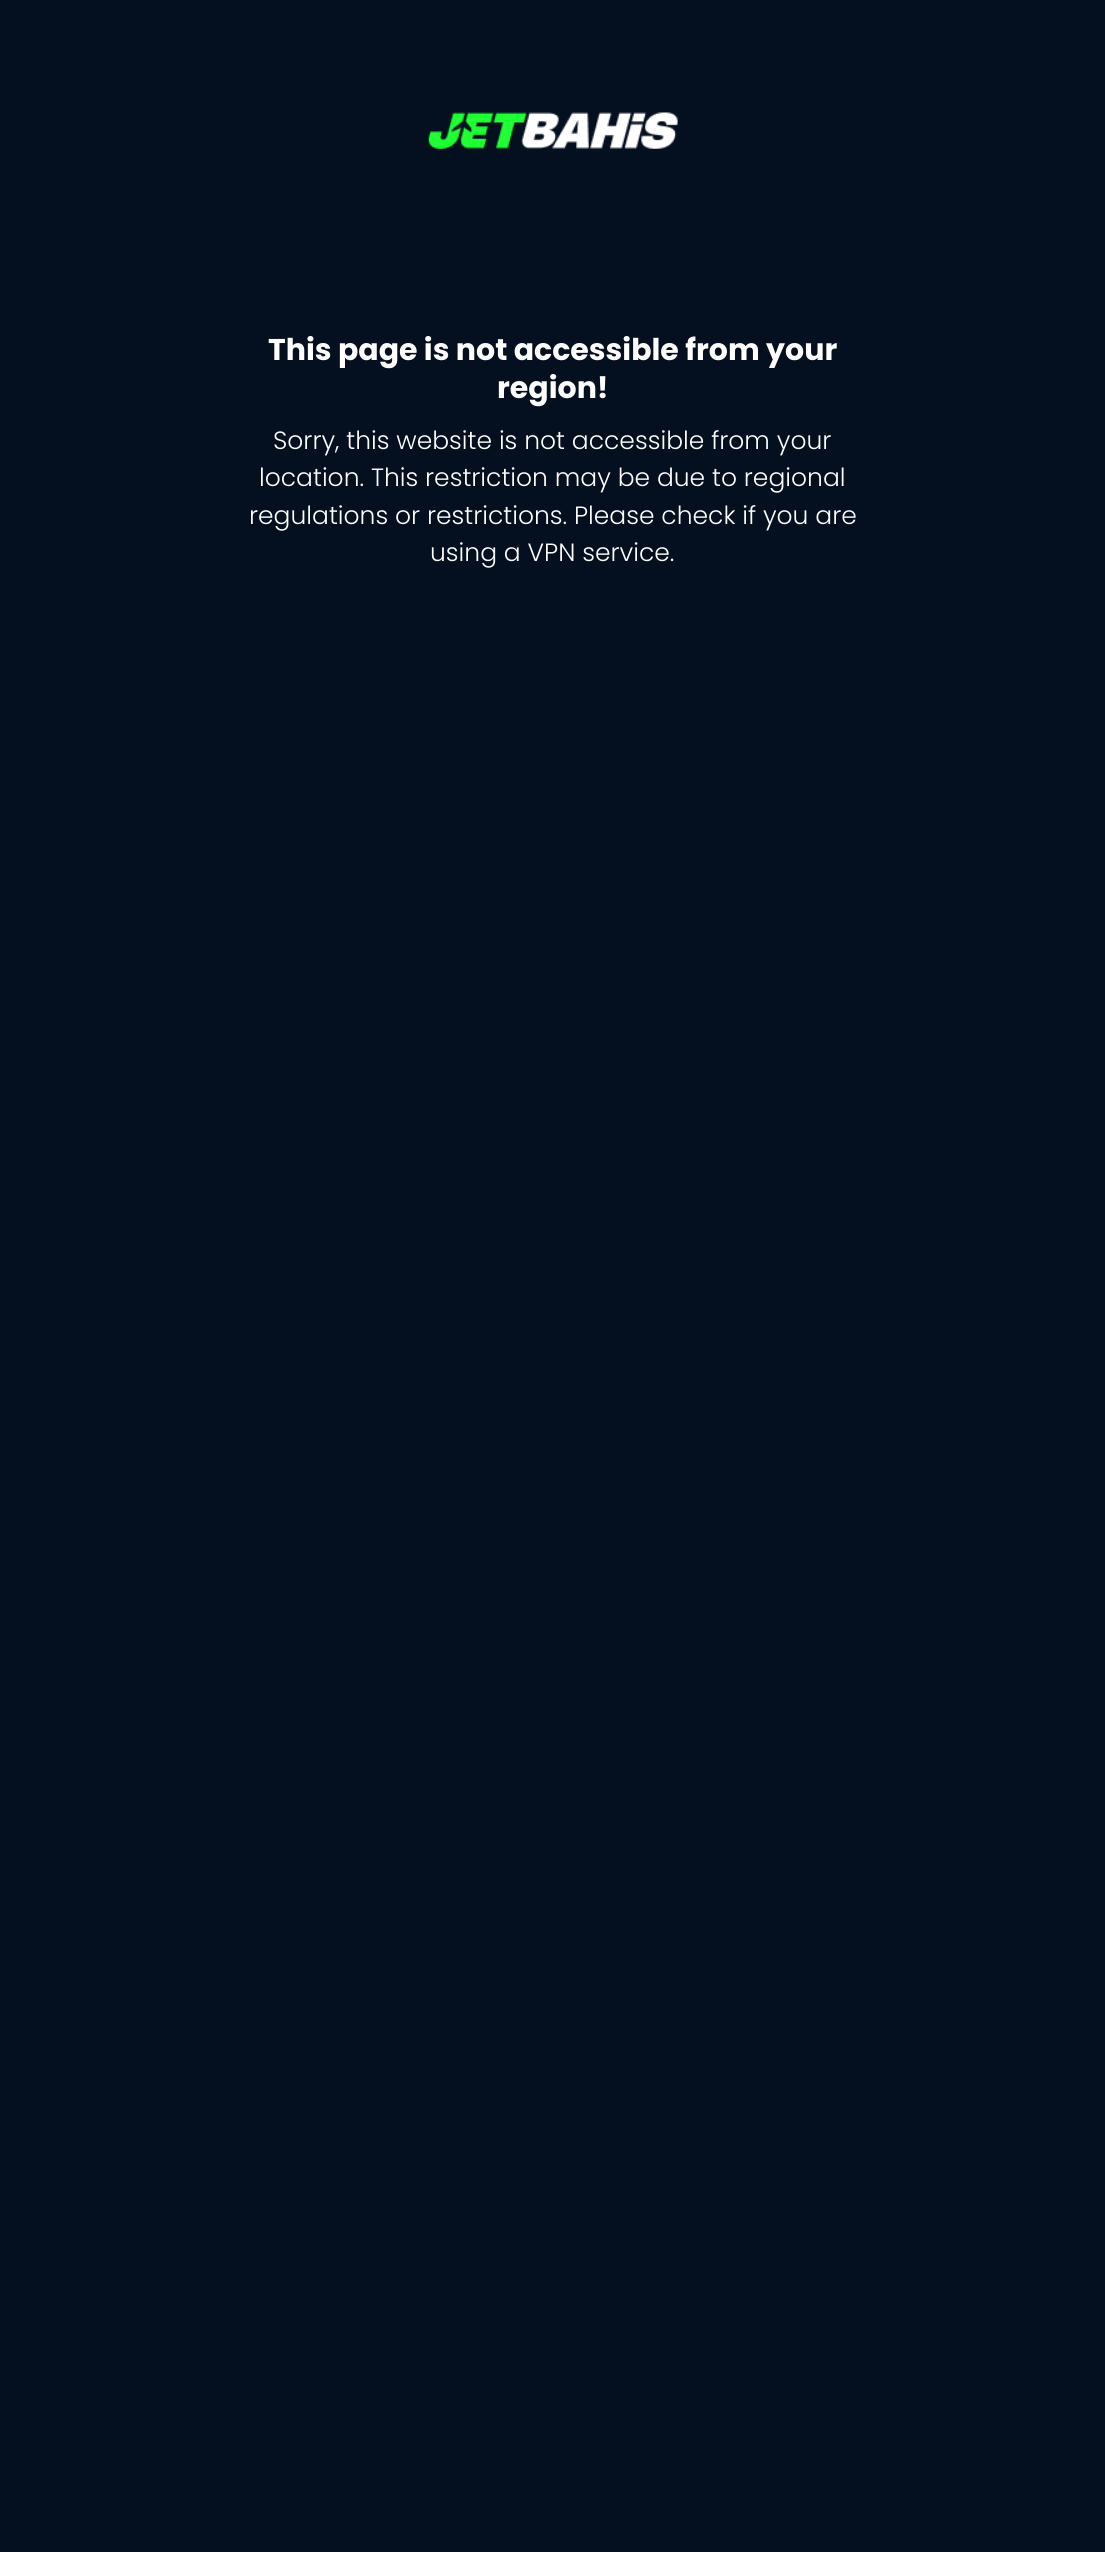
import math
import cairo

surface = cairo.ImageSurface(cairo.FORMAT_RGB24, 1105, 2552)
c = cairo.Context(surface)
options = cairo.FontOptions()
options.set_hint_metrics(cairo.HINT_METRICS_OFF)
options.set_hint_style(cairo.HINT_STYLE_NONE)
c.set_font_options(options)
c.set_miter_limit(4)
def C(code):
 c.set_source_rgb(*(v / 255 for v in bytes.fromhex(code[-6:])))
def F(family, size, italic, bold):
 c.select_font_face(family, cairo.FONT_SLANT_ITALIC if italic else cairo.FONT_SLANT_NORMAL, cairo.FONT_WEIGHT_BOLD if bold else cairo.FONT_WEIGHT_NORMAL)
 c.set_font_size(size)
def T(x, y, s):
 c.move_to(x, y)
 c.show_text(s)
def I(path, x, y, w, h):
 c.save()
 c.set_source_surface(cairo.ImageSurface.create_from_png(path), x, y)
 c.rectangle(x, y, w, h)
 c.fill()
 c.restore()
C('041020')
c.paint()
I('1.png',428,112,250,37)
F('Poppins',30,0,1)
C('ffffff')
T(268,360,'This page is not accessible from your')
T(497,398,'region!')
F('Poppins Light',25,0,0)
T(273,449,'Sorry, this website is not accessible from your')
T(259,486,'location. This restriction may be due to regional')
T(249,524,'regulations or restrictions. Please check if you are')
T(430,561,'using a VPN service.')
surface.write_to_png('o.png')
